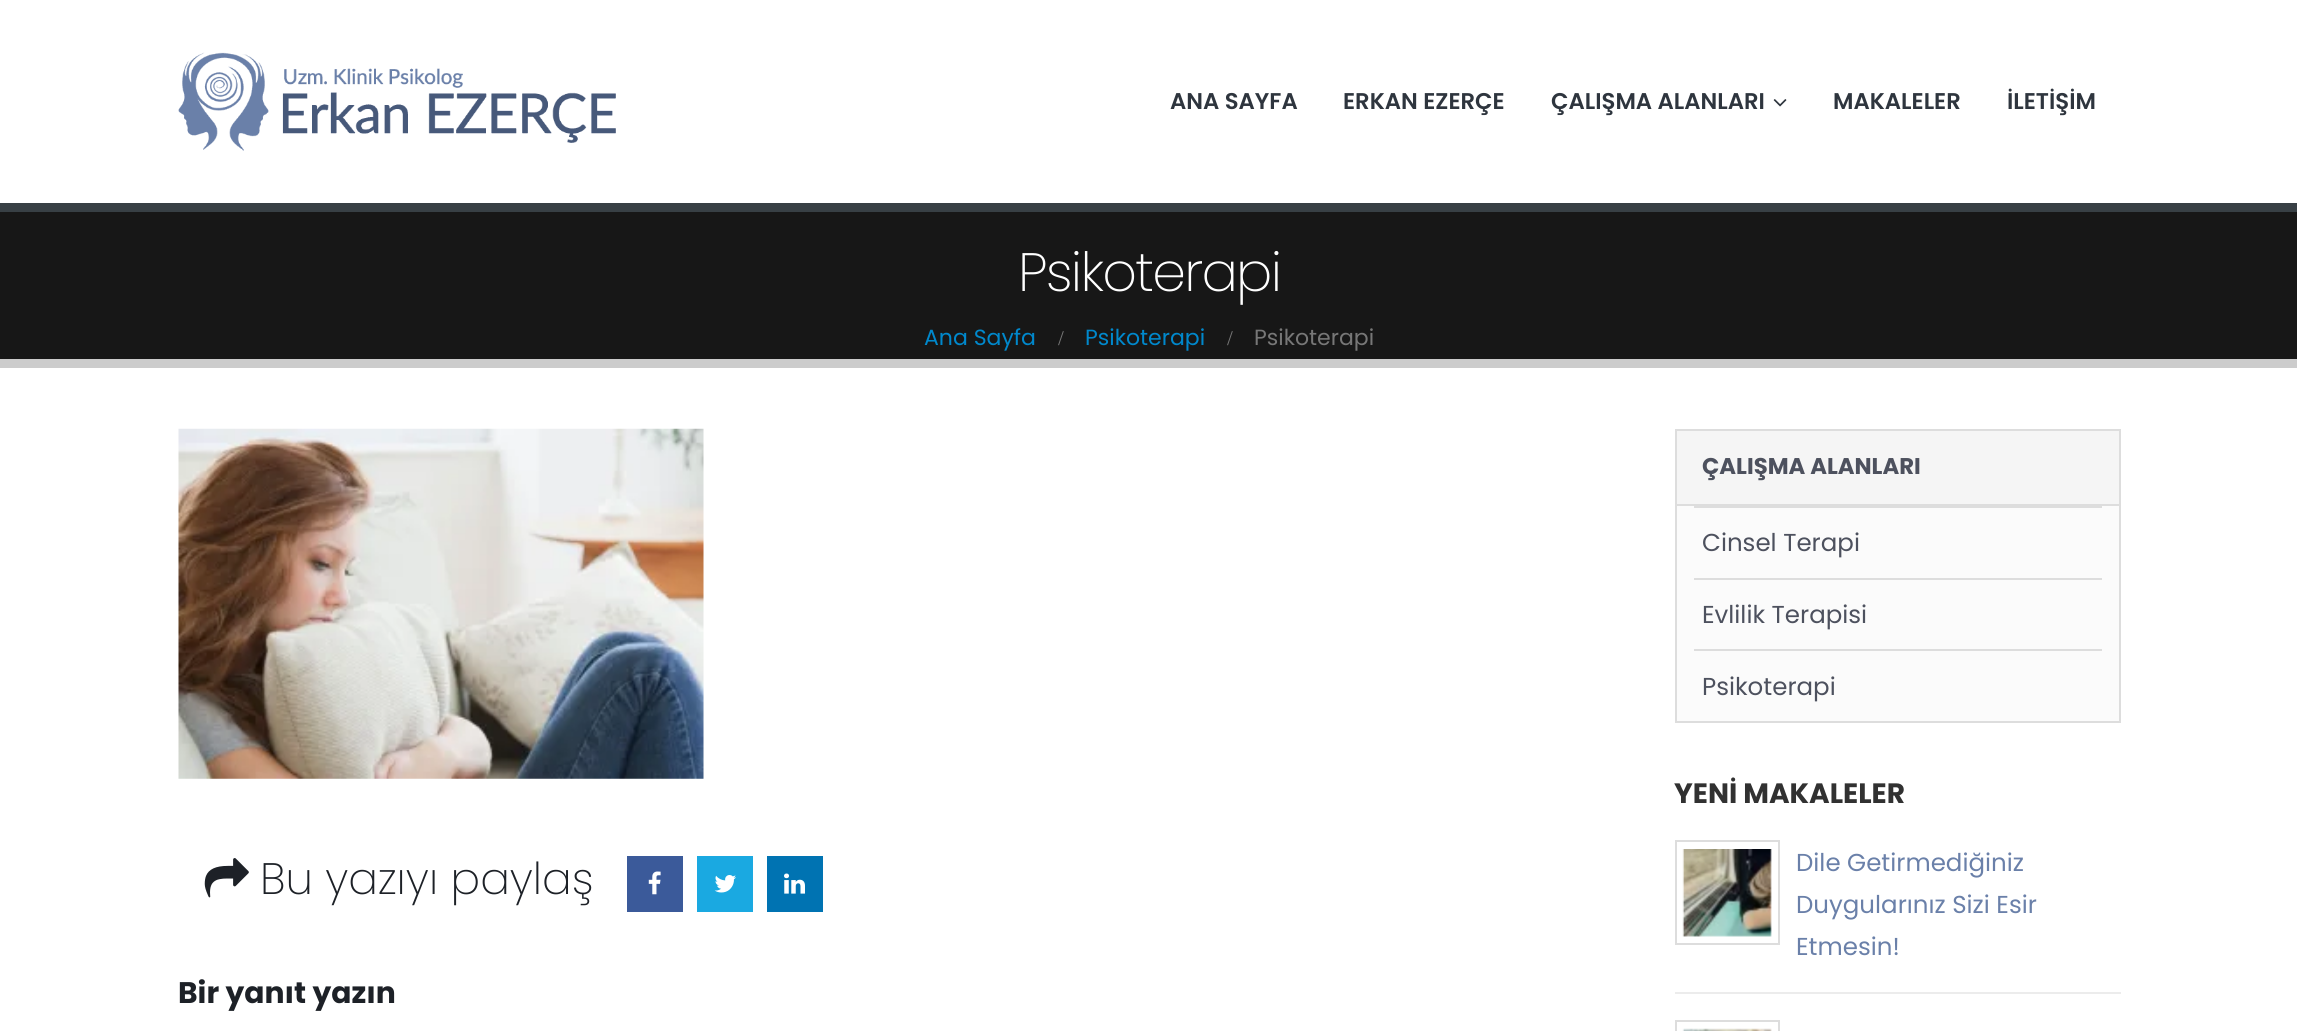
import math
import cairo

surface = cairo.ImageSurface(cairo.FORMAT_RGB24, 2297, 1031)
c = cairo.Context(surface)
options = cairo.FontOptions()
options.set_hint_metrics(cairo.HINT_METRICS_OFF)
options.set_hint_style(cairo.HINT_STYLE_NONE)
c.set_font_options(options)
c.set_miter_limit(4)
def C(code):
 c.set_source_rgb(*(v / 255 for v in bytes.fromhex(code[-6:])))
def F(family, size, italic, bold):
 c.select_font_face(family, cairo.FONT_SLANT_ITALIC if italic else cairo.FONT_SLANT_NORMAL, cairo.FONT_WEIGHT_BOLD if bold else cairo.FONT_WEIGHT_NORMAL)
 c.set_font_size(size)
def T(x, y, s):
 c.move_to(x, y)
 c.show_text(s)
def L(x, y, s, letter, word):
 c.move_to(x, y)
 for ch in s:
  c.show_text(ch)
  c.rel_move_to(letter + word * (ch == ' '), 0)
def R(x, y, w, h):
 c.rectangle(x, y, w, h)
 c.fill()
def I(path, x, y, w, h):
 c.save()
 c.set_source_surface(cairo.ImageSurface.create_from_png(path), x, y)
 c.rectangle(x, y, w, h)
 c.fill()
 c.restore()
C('ffffff')
c.paint()
I('1.png',178,52,438,99)
F('Poppins SemiBold',22.75,0,0)
C('2e353e')
T(1170,109,'ANA SAYFA')
T(1343,109,'ERKAN EZERÇE')
T(1551,109,'ÇALIŞMA ALANLARI')
I('2.png',1773,99,14,8)
T(1833,109,'MAKALELER')
T(2007,109,'İLETİŞİM')
C('171717')
R(0,212,2297,147)
C('384045')
R(0,203,2297,9)
C('cccccc')
R(0,359,2297,9)
F('Poppins ExtraLight',54,0,0)
C('ffffff')
L(1018,291,'Psikoterapi',-1.75,0)
F('Poppins',22,0,0)
C('0088cc')
T(924,345,'Ana Sayfa')
F('Liberation Serif',21,0,0)
C('777777')
T(1058,345,'/')
F('Poppins',22,0,0)
C('0088cc')
T(1085,345,'Psikoterapi')
F('Liberation Serif',21,0,0)
C('777777')
T(1227,345,'/')
F('Poppins',22,0,0)
T(1254,345,'Psikoterapi')
I('3.png',178,428,526,351)
I('4.png',204,858,45,40)
F('Poppins ExtraLight',44,0,0)
C('1d2127')
T(260,894,'Bu yazıyı paylaş')
C('3b5a9a')
R(627,856,56,56)
I('5.png',648,871,13,24)
C('1aa9e1')
R(697,856,56,56)
I('6.png',714,875,22,18)
C('0073b2')
R(767,856,56,56)
I('7.png',784,873,21,21)
F('Poppins',29.75,0,1)
C('1d2127')
T(178,1003,'Bir yanıt yazın')
C('fbfbfb')
R(1677,506,442,215)
c.rectangle(1676,430,444,292)
C('dddddd')
c.stroke()
C('f5f5f5')
R(1677,431,442,73)
C('dddddd')
R(1677,504,442,2)
F('Poppins',22.75,0,1)
C('4d515e')
T(1702,474,'ÇALIŞMA ALANLARI')
C('dddddd')
R(1694,506,408,2)
F('Poppins',24.5,0,0)
C('4d515e')
T(1702,551,'Cinsel Terapi')
C('dddddd')
R(1694,578,408,2)
C('4d515e')
T(1702,623,'Evlilik Terapisi')
C('dddddd')
R(1694,649,408,2)
C('4d515e')
T(1702,695,'Psikoterapi')
F('Poppins',28,0,1)
C('313131')
T(1674,803,'YENİ MAKALELER')
c.rectangle(1676,841,103,103)
C('dddddd')
c.stroke()
I('8.png',1682,849,90,88)
F('Poppins',24.5,0,0)
C('6a80a9')
T(1796,871,'Dile Getirmediğiniz')
T(1796,913,'Duygularınız Sizi Esir')
T(1796,955,'Etmesin!')
C('ececec')
R(1675,992,446,2)
c.rectangle(1676,1021,103,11)
C('dddddd')
c.stroke()
I('9.png',1682,1028,90,3)
surface.write_to_png('o.png')
